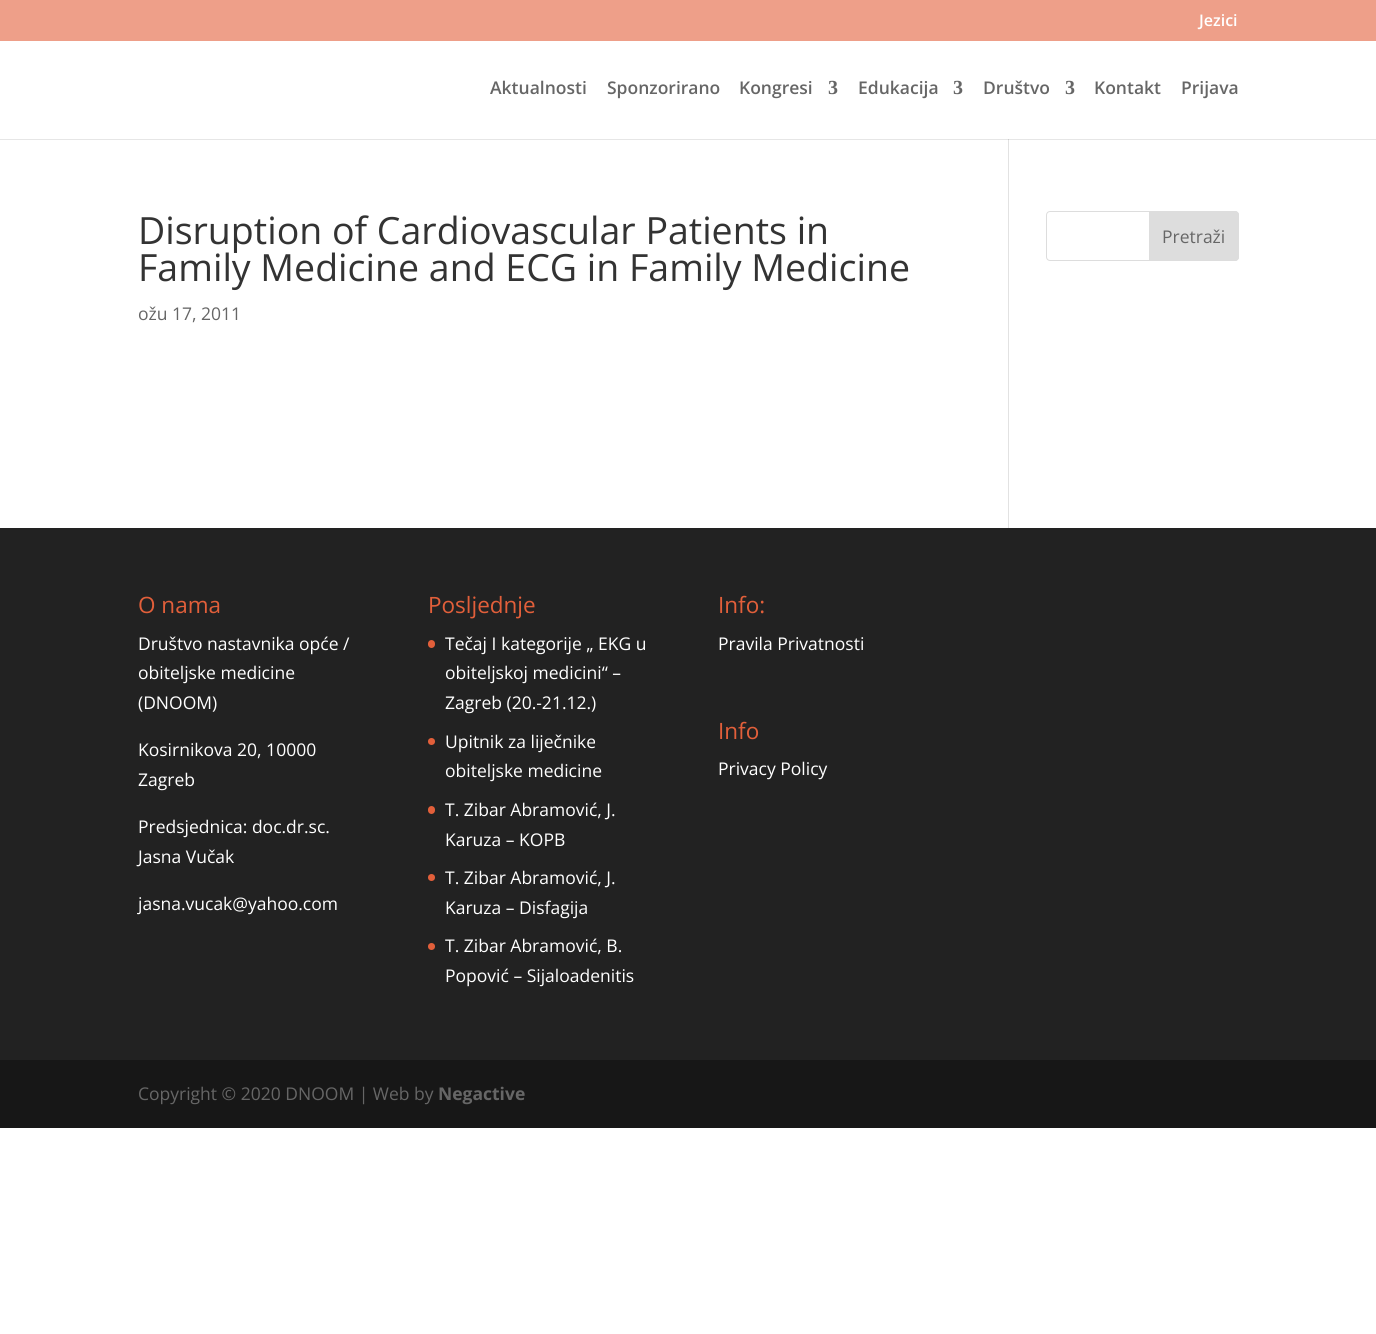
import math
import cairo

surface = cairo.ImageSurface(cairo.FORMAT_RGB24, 1376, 1334)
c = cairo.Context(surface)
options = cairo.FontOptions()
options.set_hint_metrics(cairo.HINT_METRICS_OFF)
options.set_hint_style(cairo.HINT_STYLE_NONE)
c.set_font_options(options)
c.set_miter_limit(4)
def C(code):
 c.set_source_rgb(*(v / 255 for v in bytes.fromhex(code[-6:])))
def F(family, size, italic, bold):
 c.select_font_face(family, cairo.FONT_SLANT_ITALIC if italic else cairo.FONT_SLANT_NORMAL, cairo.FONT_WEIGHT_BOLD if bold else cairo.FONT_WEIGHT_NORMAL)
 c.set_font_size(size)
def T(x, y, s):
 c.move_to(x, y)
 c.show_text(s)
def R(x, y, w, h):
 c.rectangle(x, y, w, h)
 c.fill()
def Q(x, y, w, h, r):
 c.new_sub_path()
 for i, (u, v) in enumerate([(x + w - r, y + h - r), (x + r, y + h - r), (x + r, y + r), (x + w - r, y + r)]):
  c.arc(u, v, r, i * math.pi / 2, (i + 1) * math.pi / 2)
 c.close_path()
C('ffffff')
c.paint()
C('e6e6e6')
R(0,139,1376,1)
C('ee9f89')
R(0,0,1376,41)
F('Open Sans SemiBold',16,0,0)
C('ffffff')
T(1199,26,'Jezici')
F('Open Sans SemiBold',17.5,0,0)
C('666666')
T(490,94,'Aktualnosti')
T(607,94,'Sponzorirano')
T(739,94,'Kongresi')
F('Liberation Serif',20,0,1)
T(828,94,'3')
F('Open Sans SemiBold',17.5,0,0)
T(858,94,'Edukacija')
F('Liberation Serif',20,0,1)
T(953,94,'3')
F('Open Sans SemiBold',17.5,0,0)
T(983,94,'Društvo')
F('Liberation Serif',20,0,1)
T(1065,94,'3')
F('Open Sans SemiBold',17.5,0,0)
T(1094,94,'Kontakt')
T(1181,94,'Prijava')
C('e2e2e2')
R(1008,139,1,389)
C('cbcbcb')
R(1008,139,1,1)
F('Open Sans',37.5,0,0)
C('333333')
T(138,244,'Disruption of Cardiovascular Patients in')
T(138,281,'Family Medicine and ECG in Family Medicine')
F('Open Sans',17.5,0,0)
C('666666')
T(138,320,'ožu 17, 2011')
Q(1046.5,211.5,192,49,3.5)
C('dddddd')
c.set_line_width(1)
c.stroke()
c.new_path()
c.move_to(1149.5,211.5)
c.line_to(1235,211.5)
c.curve_to(1237,211.5,1238.5,213,1238.5,215)
c.line_to(1238.5,257)
c.curve_to(1238.5,259,1237,260.5,1235,260.5)
c.line_to(1149.5,260.5)
c.close_path()
c.fill_preserve()
c.stroke()
C('666666')
T(1162,243,'Pretraži')
C('222222')
R(0,528,1376,532)
F('Open Sans',22.5,0,0)
C('e25f3a')
T(138,613,'O nama')
F('Open Sans',17.5,0,0)
C('ffffff')
T(138,650,'Društvo nastavnika opće /')
T(138,679,'obiteljske medicine')
T(138,709,'(DNOOM)')
T(138,756,'Kosirnikova 20, 10000')
T(138,786,'Zagreb')
T(138,833,'Predsjednica: doc.dr.sc.')
T(138,863,'Jasna Vučak')
T(138,910,'jasna.vucak@yahoo.com')
F('Open Sans',22.5,0,0)
C('e25f3a')
T(428,613,'Posljednje')
Q(428,640,7,8,3.5)
c.fill()
F('Open Sans',17.5,0,0)
C('ffffff')
T(445,650,'Tečaj I kategorije „ EKG u')
T(445,679,'obiteljskoj medicini“ –')
T(445,709,'Zagreb (20.-21.12.)')
C('e25f3a')
c.new_path()
c.arc(431.5,741.5,3.5,0,2 * math.pi)
c.fill()
C('ffffff')
T(445,748,'Upitnik za liječnike')
T(445,777,'obiteljske medicine')
C('e25f3a')
Q(428,806,7,8,3.5)
c.fill()
C('ffffff')
T(445,816,'T. Zibar Abramović, J.')
T(445,846,'Karuza – KOPB')
C('e25f3a')
c.new_path()
c.arc(431.5,877.5,3.5,0,2 * math.pi)
c.fill()
C('ffffff')
T(445,884,'T. Zibar Abramović, J.')
T(445,914,'Karuza – Disfagija')
C('e25f3a')
c.new_path()
c.arc(431.5,946.5,3.5,0,2 * math.pi)
c.fill()
C('ffffff')
T(445,952,'T. Zibar Abramović, B.')
T(445,982,'Popović – Sijaloadenitis')
F('Open Sans',22.5,0,0)
C('e25f3a')
T(718,613,'Info:')
F('Open Sans',17.5,0,0)
C('ffffff')
T(718,650,'Pravila Privatnosti')
F('Open Sans',22.5,0,0)
C('e25f3a')
T(718,739,'Info')
F('Open Sans',17.5,0,0)
C('ffffff')
T(718,775,'Privacy Policy')
C('171717')
R(0,1060,1376,68)
C('666666')
T(138,1100,'Copyright © 2020 DNOOM | Web by')
F('Open Sans',17.5,0,1)
T(438,1100,'Negactive')
surface.write_to_png('o.png')
